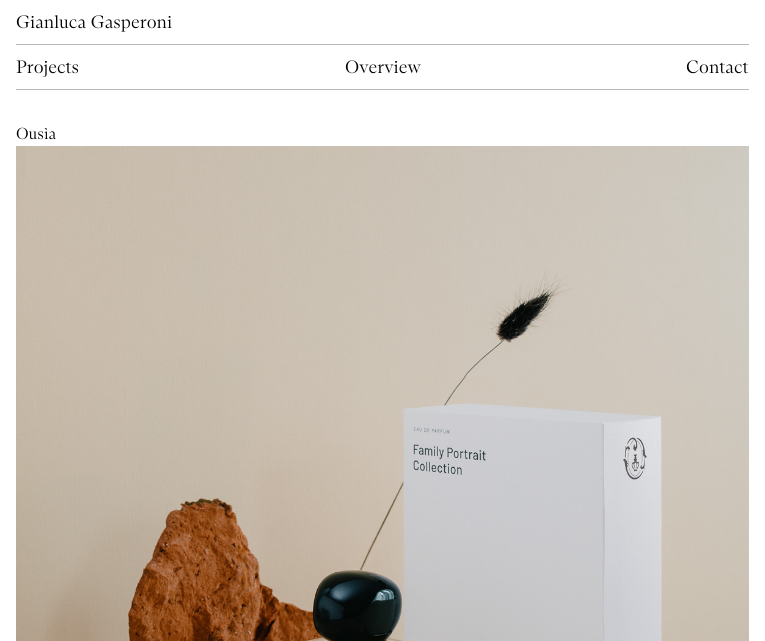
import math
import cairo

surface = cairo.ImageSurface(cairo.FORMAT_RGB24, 765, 641)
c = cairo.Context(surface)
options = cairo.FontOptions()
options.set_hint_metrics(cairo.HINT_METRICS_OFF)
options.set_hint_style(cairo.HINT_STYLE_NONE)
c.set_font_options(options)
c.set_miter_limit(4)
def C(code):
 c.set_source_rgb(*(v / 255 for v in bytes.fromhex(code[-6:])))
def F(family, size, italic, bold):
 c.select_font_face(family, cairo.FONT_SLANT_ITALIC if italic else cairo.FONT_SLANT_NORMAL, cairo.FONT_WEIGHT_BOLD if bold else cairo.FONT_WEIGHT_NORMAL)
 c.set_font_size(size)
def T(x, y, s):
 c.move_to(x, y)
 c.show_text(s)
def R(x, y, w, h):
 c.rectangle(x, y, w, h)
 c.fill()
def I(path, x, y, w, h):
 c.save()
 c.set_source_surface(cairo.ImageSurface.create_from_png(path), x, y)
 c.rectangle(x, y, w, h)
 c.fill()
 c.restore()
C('ffffff')
c.paint()
F('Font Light',18,0,0)
C('000000')
T(16,28,'Gianluca Gasperoni')
C('b9b9b9')
R(16,44,733,1)
R(16,89,733,1)
C('000000')
T(16,73,'Projects')
T(345,73,'Overview')
T(686,73,'Contact')
F('Font Light',16,0,0)
T(16,139,'Ousìa')
I('1.png',16,146,733,495)
surface.write_to_png('o.png')
